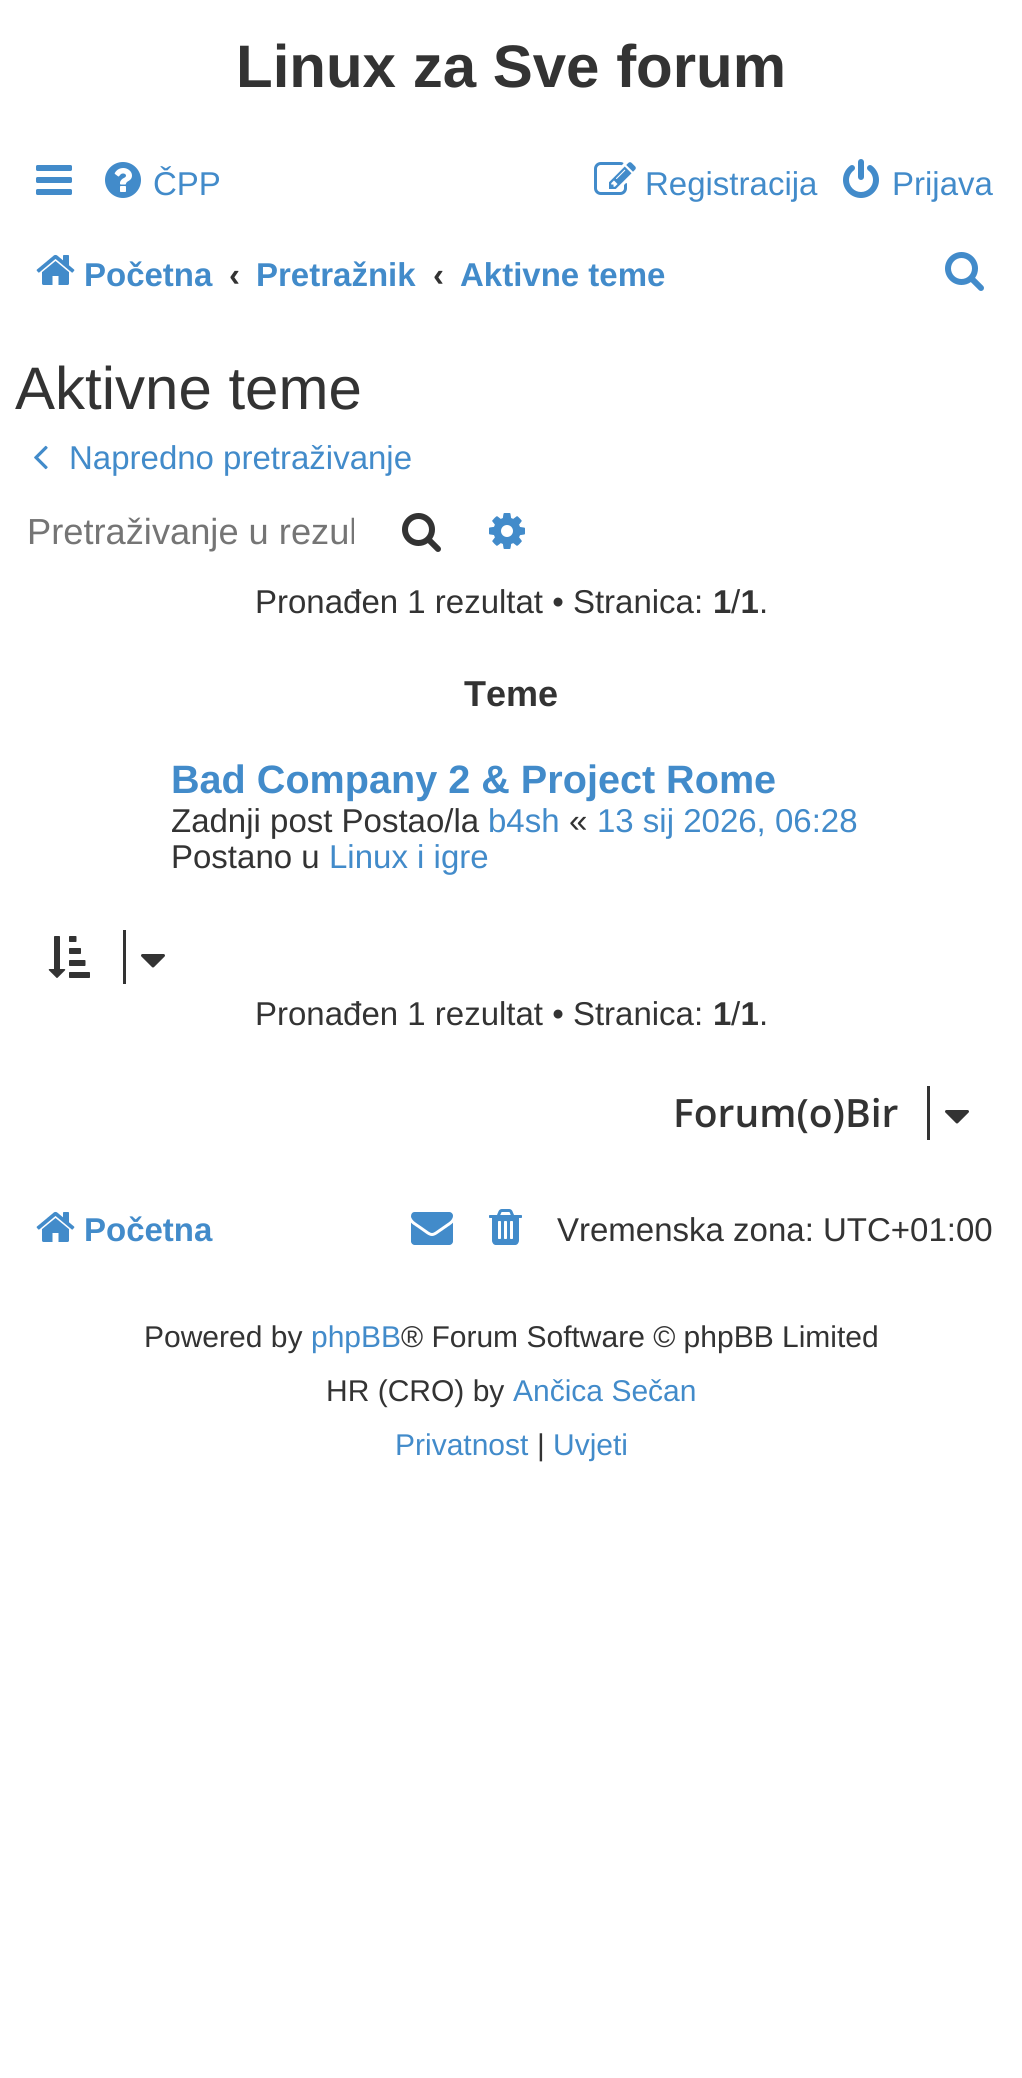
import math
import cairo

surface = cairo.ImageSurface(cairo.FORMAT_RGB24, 1022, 2078)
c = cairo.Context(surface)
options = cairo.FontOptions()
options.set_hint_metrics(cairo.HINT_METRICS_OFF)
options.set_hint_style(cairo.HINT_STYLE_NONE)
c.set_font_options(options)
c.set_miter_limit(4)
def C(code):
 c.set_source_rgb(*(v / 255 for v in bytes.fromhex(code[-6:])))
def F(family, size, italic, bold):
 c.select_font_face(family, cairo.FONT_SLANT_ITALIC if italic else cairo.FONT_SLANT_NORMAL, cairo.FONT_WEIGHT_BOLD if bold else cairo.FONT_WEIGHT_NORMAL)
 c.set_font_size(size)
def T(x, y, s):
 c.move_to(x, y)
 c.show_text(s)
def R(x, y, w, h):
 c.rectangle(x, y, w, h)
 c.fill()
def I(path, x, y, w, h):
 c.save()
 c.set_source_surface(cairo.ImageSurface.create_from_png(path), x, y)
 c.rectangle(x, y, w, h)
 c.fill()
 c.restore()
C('ffffff')
c.paint()
F('Liberation Sans',60,0,1)
C('333333')
T(236,87,'Linux za Sve forum')
I('1.png',36,165,36,30)
I('2.png',105,162,36,36)
F('Liberation Sans',33,0,0)
C('428bca')
T(153,195,'ČPP')
I('3.png',594,162,42,33)
T(645,195,'Registracija')
I('4.png',843,159,36,39)
T(892,195,'Prijava')
I('5.png',36,254,39,31)
F('Liberation Sans',33,0,1)
T(84,286,'Početna')
C('333333')
T(229,286,'‹')
C('428bca')
T(256,286,'Pretražnik')
C('333333')
T(433,286,'‹')
C('428bca')
T(460,286,'Aktivne teme')
I('6.png',945,252,39,39)
F('Liberation Sans',60,0,0)
C('333333')
T(15,409,'Aktivne teme')
I('7.png',34,445,14,25)
F('Liberation Sans',33,0,0)
C('428bca')
T(69,469,'Napredno pretraživanje')
c.save()
c.rectangle(27,510,327,42)
c.clip()
F('Liberation Sans',36.25,0,0)
C('757575')
T(27,544,'Pretraživanje u rezul')
c.restore()
I('8.png',402,513,39,39)
I('9.png',489,513,36,36)
C('333333')
T(255,613,'Pronađen 1 rezultat • Stranica:')
F('Liberation Sans',33,0,1)
T(713,613,'1 1')
F('Liberation Sans',33,0,0)
T(731,613,'/')
T(759,613,'.')
F('Liberation Sans',36,0,1)
T(464,706,'Teme')
F('Liberation Sans',39.6,0,1)
C('428bca')
T(171,793,'Bad Company 2 & Project Rome')
F('Liberation Sans',33,0,0)
C('333333')
T(171,832,'Zadnji post Postao/la')
C('428bca')
T(488,832,'b4sh')
C('333333')
T(569,832,'«')
C('428bca')
T(597,832,'13 sij 2026, 06:28')
C('333333')
T(171,868,'Postano u')
C('428bca')
T(329,868,'Linux i igre')
I('10.png',48,936,42,42)
C('333333')
R(123,930,3,54)
I('11.png',141,954,24,14)
T(255,1025,'Pronađen 1 rezultat • Stranica:')
F('Liberation Sans',33,0,1)
T(713,1025,'1 1')
F('Liberation Sans',33,0,0)
T(731,1025,'/')
T(759,1025,'.')
F('Open Sans SemiBold',39,0,0)
T(673,1127,'Forum(o)Bir')
R(927,1086,3,54)
I('11.png',945,1110,24,14)
I('5.png',36,1211,39,31)
F('Liberation Sans',33,0,1)
C('428bca')
T(84,1241,'Početna')
I('12.png',411,1212,42,33)
I('13.png',489,1209,33,36)
F('Liberation Sans',33,0,0)
C('333333')
T(557,1241,'Vremenska zona: UTC+01:00')
F('Liberation Sans',30,0,0)
T(144,1347,'Powered by')
C('428bca')
T(311,1347,'phpBB')
C('333333')
T(401,1347,'® Forum Software © phpBB Limited')
T(326,1401,'HR (CRO) by')
C('428bca')
T(513,1401,'Ančica Sečan')
T(395,1455,'Privatnost')
C('333333')
T(537,1455,'|')
C('428bca')
T(553,1455,'Uvjeti')
surface.write_to_png('o.png')
